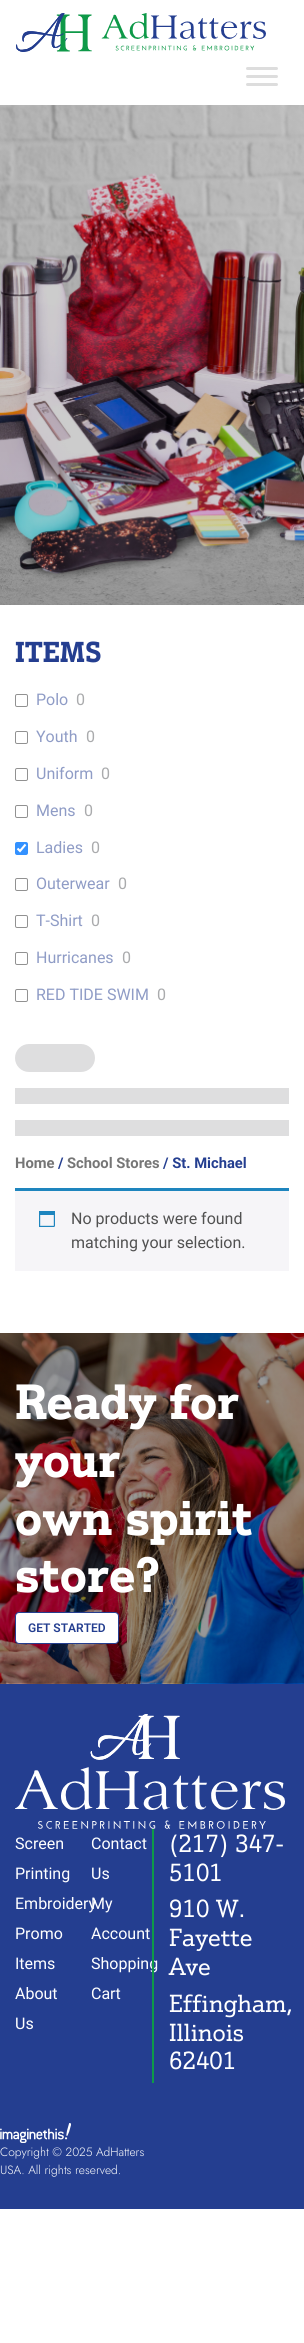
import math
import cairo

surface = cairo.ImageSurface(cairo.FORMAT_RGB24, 304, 2343)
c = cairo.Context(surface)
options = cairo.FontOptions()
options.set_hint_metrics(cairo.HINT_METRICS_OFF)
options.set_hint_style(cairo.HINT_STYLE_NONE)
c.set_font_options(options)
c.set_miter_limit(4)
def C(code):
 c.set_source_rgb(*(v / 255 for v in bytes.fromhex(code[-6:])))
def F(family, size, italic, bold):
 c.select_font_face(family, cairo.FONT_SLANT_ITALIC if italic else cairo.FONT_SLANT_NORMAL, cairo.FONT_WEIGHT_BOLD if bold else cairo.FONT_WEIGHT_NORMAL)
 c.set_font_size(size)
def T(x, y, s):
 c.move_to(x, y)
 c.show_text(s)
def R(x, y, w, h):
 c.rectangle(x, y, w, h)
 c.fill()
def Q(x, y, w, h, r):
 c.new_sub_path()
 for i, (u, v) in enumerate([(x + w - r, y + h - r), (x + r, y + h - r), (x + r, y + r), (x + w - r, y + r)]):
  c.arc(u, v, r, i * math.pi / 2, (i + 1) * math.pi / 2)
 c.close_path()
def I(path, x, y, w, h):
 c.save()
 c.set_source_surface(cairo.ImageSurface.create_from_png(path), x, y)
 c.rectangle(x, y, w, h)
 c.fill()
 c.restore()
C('ffffff')
c.paint()
I('1.png',16,13,250,39)
C('dddddd')
Q(246,67,32,3,1.5)
c.fill()
Q(246,75,32,3,1.5)
c.fill()
Q(246,83,32,3,1.5)
c.fill()
I('2.png',0,105,304,500)
F('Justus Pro',28,0,1)
C('243e90')
T(15,662,'ITEMS')
Q(15.5,694.5,12,12,1.5)
C('919191')
c.set_line_width(1)
c.stroke()
F('Roboto',16,0,0)
C('8f9cc6')
T(36,705,'Polo')
C('aaabad')
T(76,705,'0')
Q(15.5,731.5,12,12,1.5)
C('919191')
c.stroke()
C('8f9cc6')
T(36,742,'Youth')
C('aaabad')
T(86,742,'0')
Q(15.5,768.5,12,12,1.5)
C('919191')
c.stroke()
C('8f9cc6')
T(36,779,'Uniform')
C('aaabad')
T(101,779,'0')
Q(15.5,805.5,12,12,1.5)
C('919191')
c.stroke()
C('8f9cc6')
T(36,816,'Mens')
C('aaabad')
T(84,816,'0')
C('3391ff')
Q(15,842,13,13,2)
c.fill()
c.new_path()
c.move_to(17.5,848.5)
c.line_to(20,851)
c.line_to(25.5,844.5)
C('ffffff')
c.set_line_width(2.1)
c.stroke()
C('8f9cc6')
T(36,853,'Ladies')
C('aaabad')
T(91,853,'0')
Q(15.5,878.5,12,12,1.5)
C('919191')
c.set_line_width(1)
c.stroke()
C('8f9cc6')
T(36,889,'Outerwear')
C('aaabad')
T(118,889,'0')
Q(15.5,915.5,12,12,1.5)
C('919191')
c.stroke()
C('8f9cc6')
T(36,926,'T-Shirt')
C('aaabad')
T(91,926,'0')
Q(15.5,952.5,12,12,1.5)
C('919191')
c.stroke()
C('8f9cc6')
T(36,963,'Hurricanes')
C('aaabad')
T(122,963,'0')
Q(15.5,989.5,12,12,1.5)
C('919191')
c.stroke()
C('8f9cc6')
T(36,1000,'RED TIDE SWIM')
C('aaabad')
T(157,1000,'0')
C('dededf')
Q(15,1044,80,28,14)
c.fill()
R(15,1088,274,16)
R(15,1120,274,16)
F('Roboto',14.75,0,1)
C('767676')
T(15,1168,'Home')
C('243e90')
T(58,1168,'/')
C('767676')
T(67,1168,'School Stores')
C('243e90')
T(163,1168,'/ St. Michael')
C('f6f5f8')
R(15,1191,274,80)
C('1e85be')
R(15,1188,274,3)
I('3.png',39,1211,16,16)
F('Roboto',16,0,0)
C('515151')
T(71,1224,'No products were found')
T(71,1248,'matching your selection.')
I('4.png',0,1333,304,351)
F('Justus Pro',48,0,1)
C('ffffff')
T(15,1419,'Ready for')
T(15,1477,'your')
T(15,1535,'own spirit')
T(15,1592,'store?')
Q(15.5,1612.5,103,31,3.5)
c.fill_preserve()
C('243e90')
c.stroke()
F('Roboto SemiBold',12,0,0)
T(28,1632,'GET STARTED')
R(0,1684,304,525)
I('5.png',15,1714,270,115)
F('Roboto',16,0,0)
C('ffffff')
T(15,1849,'Screen')
T(15,1879,'Printing')
T(15,1909,'Embroidery')
T(15,1939,'Promo')
T(15,1969,'Items')
T(15,1999,'About')
T(15,2029,'Us')
T(91,1849,'Contact')
T(91,1879,'Us')
T(91,1909,'My')
T(91,1939,'Account')
T(91,1969,'Shopping')
T(91,1999,'Cart')
C('0e9a48')
R(152,1829,2,254)
F('Justus Pro',24,0,0)
C('ffffff')
T(169,1852,'(217) 347-')
T(169,1881,'5101')
T(169,1917,'910 W.')
T(169,1946,'Fayette')
T(169,1975,'Ave')
T(169,2012,'Effingham,')
T(169,2041,'Illinois')
T(169,2069,'62401')
I('6.png',0,2123,71,20)
F('Jost Light',12,0,0)
T(0,2156,'Copyright © 2025 AdHatters')
T(0,2174,'USA. All rights reserved.')
surface.write_to_png('o.png')
